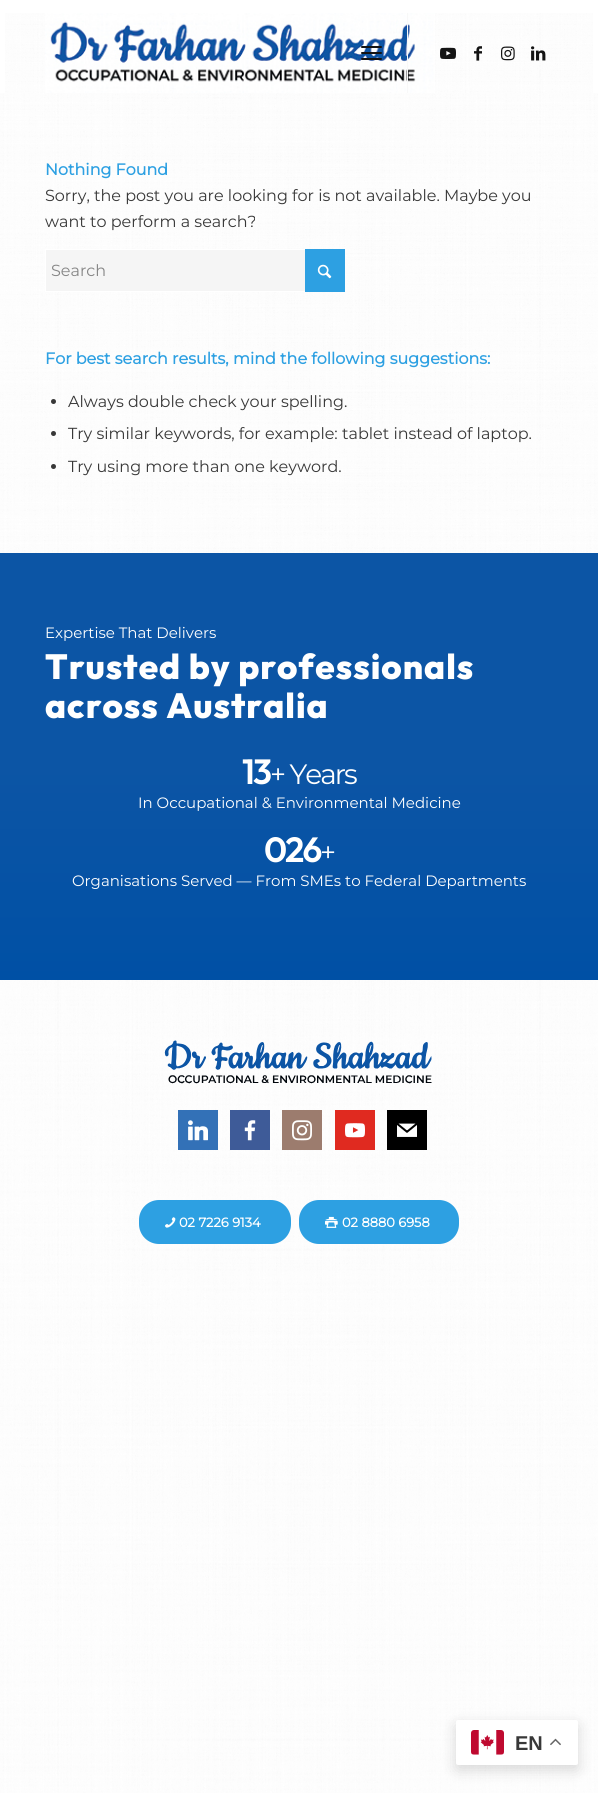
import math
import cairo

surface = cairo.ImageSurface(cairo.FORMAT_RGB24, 598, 1793)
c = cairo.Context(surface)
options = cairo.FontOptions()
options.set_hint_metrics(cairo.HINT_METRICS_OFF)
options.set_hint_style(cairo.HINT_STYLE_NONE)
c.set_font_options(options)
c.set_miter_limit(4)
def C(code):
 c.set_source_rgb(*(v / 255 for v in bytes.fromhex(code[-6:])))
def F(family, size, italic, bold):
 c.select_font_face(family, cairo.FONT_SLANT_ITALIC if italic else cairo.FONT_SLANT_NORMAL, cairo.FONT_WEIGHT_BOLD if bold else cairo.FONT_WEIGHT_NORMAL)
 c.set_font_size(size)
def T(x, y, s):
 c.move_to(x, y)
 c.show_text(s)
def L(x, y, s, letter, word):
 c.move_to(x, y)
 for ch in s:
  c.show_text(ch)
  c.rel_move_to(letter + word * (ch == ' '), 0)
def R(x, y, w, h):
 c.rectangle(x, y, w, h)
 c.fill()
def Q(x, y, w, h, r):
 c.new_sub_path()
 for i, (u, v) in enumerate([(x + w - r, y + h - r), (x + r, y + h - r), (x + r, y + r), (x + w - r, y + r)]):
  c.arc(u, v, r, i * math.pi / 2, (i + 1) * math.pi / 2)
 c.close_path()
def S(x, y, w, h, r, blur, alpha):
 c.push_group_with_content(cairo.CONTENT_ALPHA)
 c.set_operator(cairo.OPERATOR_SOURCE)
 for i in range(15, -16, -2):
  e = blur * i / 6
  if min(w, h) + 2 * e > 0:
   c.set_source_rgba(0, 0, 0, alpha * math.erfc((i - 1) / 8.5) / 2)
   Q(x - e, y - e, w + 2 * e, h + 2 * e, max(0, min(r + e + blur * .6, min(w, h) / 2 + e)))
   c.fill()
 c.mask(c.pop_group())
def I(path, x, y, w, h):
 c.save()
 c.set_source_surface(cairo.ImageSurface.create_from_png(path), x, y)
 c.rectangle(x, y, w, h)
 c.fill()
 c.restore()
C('ffffff')
c.paint()
I('1.png',5,13,588,80)
I('2.png',45,13,390,80)
C('f8f8f8')
R(407,13,1,80)
C('141414')
Q(361,52,21,2,1)
c.fill()
Q(361,46,21,2,1)
c.fill()
Q(361,58,21,2,1)
c.fill()
I('3.png',440,47,16,12)
I('4.png',474,46,8,15)
I('5.png',501,46,14,15)
I('6.png',531,46,15,15)
I('7.png',0,93,598,460)
F('Montserrat',16,0,1)
C('2da0e2')
T(45,175,'Nothing Found')
F('Montserrat Thin',16,0,0)
C('383838')
T(45,201,'Sorry, the post you are looking for is not available. Maybe you')
T(45,227,'want to perform a search?')
C('f5f5f5')
R(46,250,259,41)
c.rectangle(45.5,249.5,299,42)
C('ffffff')
c.set_line_width(1)
c.stroke()
C('858585')
T(51,276,'Search')
C('2da0e2')
R(305,249,40,43)
I('8.png',317,264,15,15)
F('Montserrat',16,0,1)
T(45,364,'For best search results, mind the following suggestions:')
C('383838')
c.new_path()
c.arc(53.5,401.5,2.5,0,2 * math.pi)
c.fill()
F('Montserrat Thin',16,0,0)
T(68,407,'Always double check your spelling.')
c.new_path()
c.arc(53.5,433.5,2.5,0,2 * math.pi)
c.fill()
T(68,439,'Try similar keywords, for example: tablet instead of laptop.')
c.new_path()
c.arc(53.5,466.5,2.5,0,2 * math.pi)
c.fill()
T(68,472,'Try using more than one keyword.')
gradient = cairo.LinearGradient(299,553,299,980)
gradient.add_color_stop_rgba(0,0.047,0.333,0.647,1)
gradient.add_color_stop_rgba(.5,0.047,0.333,0.647,1)
gradient.add_color_stop_rgba(1,0,0.314,0.647,1)
c.set_source(gradient)
R(0,553,598,427)
F('Montserrat Thin',15,0,0)
C('ffffff')
T(45,638,'Expertise That Delivers')
F('Outfit ExtraBold',35,0,0)
L(45,679,'Trusted by professionals',1,0)
L(45,718,'across Australia',1,0)
F('Outfit SemiBold',35,0,0)
L(242,784,'13',-2,0)
F('Montserrat Thin',28,0,0)
L(270,784,'+ Years',-2,0)
F('Montserrat Thin',15,0,0)
T(138,808,'In Occupational & Environmental Medicine')
F('Outfit SemiBold',35,0,0)
L(264,862,'026',-2,0)
F('Montserrat Thin',28,0,0)
L(320,862,'+',-2,0)
F('Montserrat Thin',15,0,0)
T(72,886,'Organisations Served — From SMEs to Federal Departments')
I('9.png',0,980,598,813)
I('10.png',164,1040,268,44)
C('3371b7')
R(178,1110,40,40)
I('11.png',188,1120,20,21)
C('3e5b98')
R(230,1110,40,40)
I('12.png',244,1120,12,21)
C('9c7c6e')
R(282,1110,40,40)
I('13.png',292,1120,20,21)
C('e02a20')
R(335,1110,40,40)
I('14.png',345,1123,20,15)
C('000000')
R(387,1110,40,40)
I('15.png',397,1123,20,14)
C('2da0e2')
Q(139,1200,152,44,20)
c.fill()
I('16.png',165,1217,11,11)
F('Montserrat',13,0,1)
C('ffffff')
T(179,1227,'02 7226 9134')
C('2da0e2')
Q(299,1200,160,44,20)
c.fill()
I('17.png',325,1216,13,12)
C('ffffff')
T(342,1227,'02 8880 6958')
C('000000')
S(456,1725,122,45,2,7.5,.15)
C('ffffff')
Q(456,1720,122,45,2)
c.fill()
I('18.png',471,1730,33,25)
F('Liberation Sans',20,0,1)
C('383838')
T(515,1750,'EN')
I('19.png',550,1738,11,8)
surface.write_to_png('o.png')
